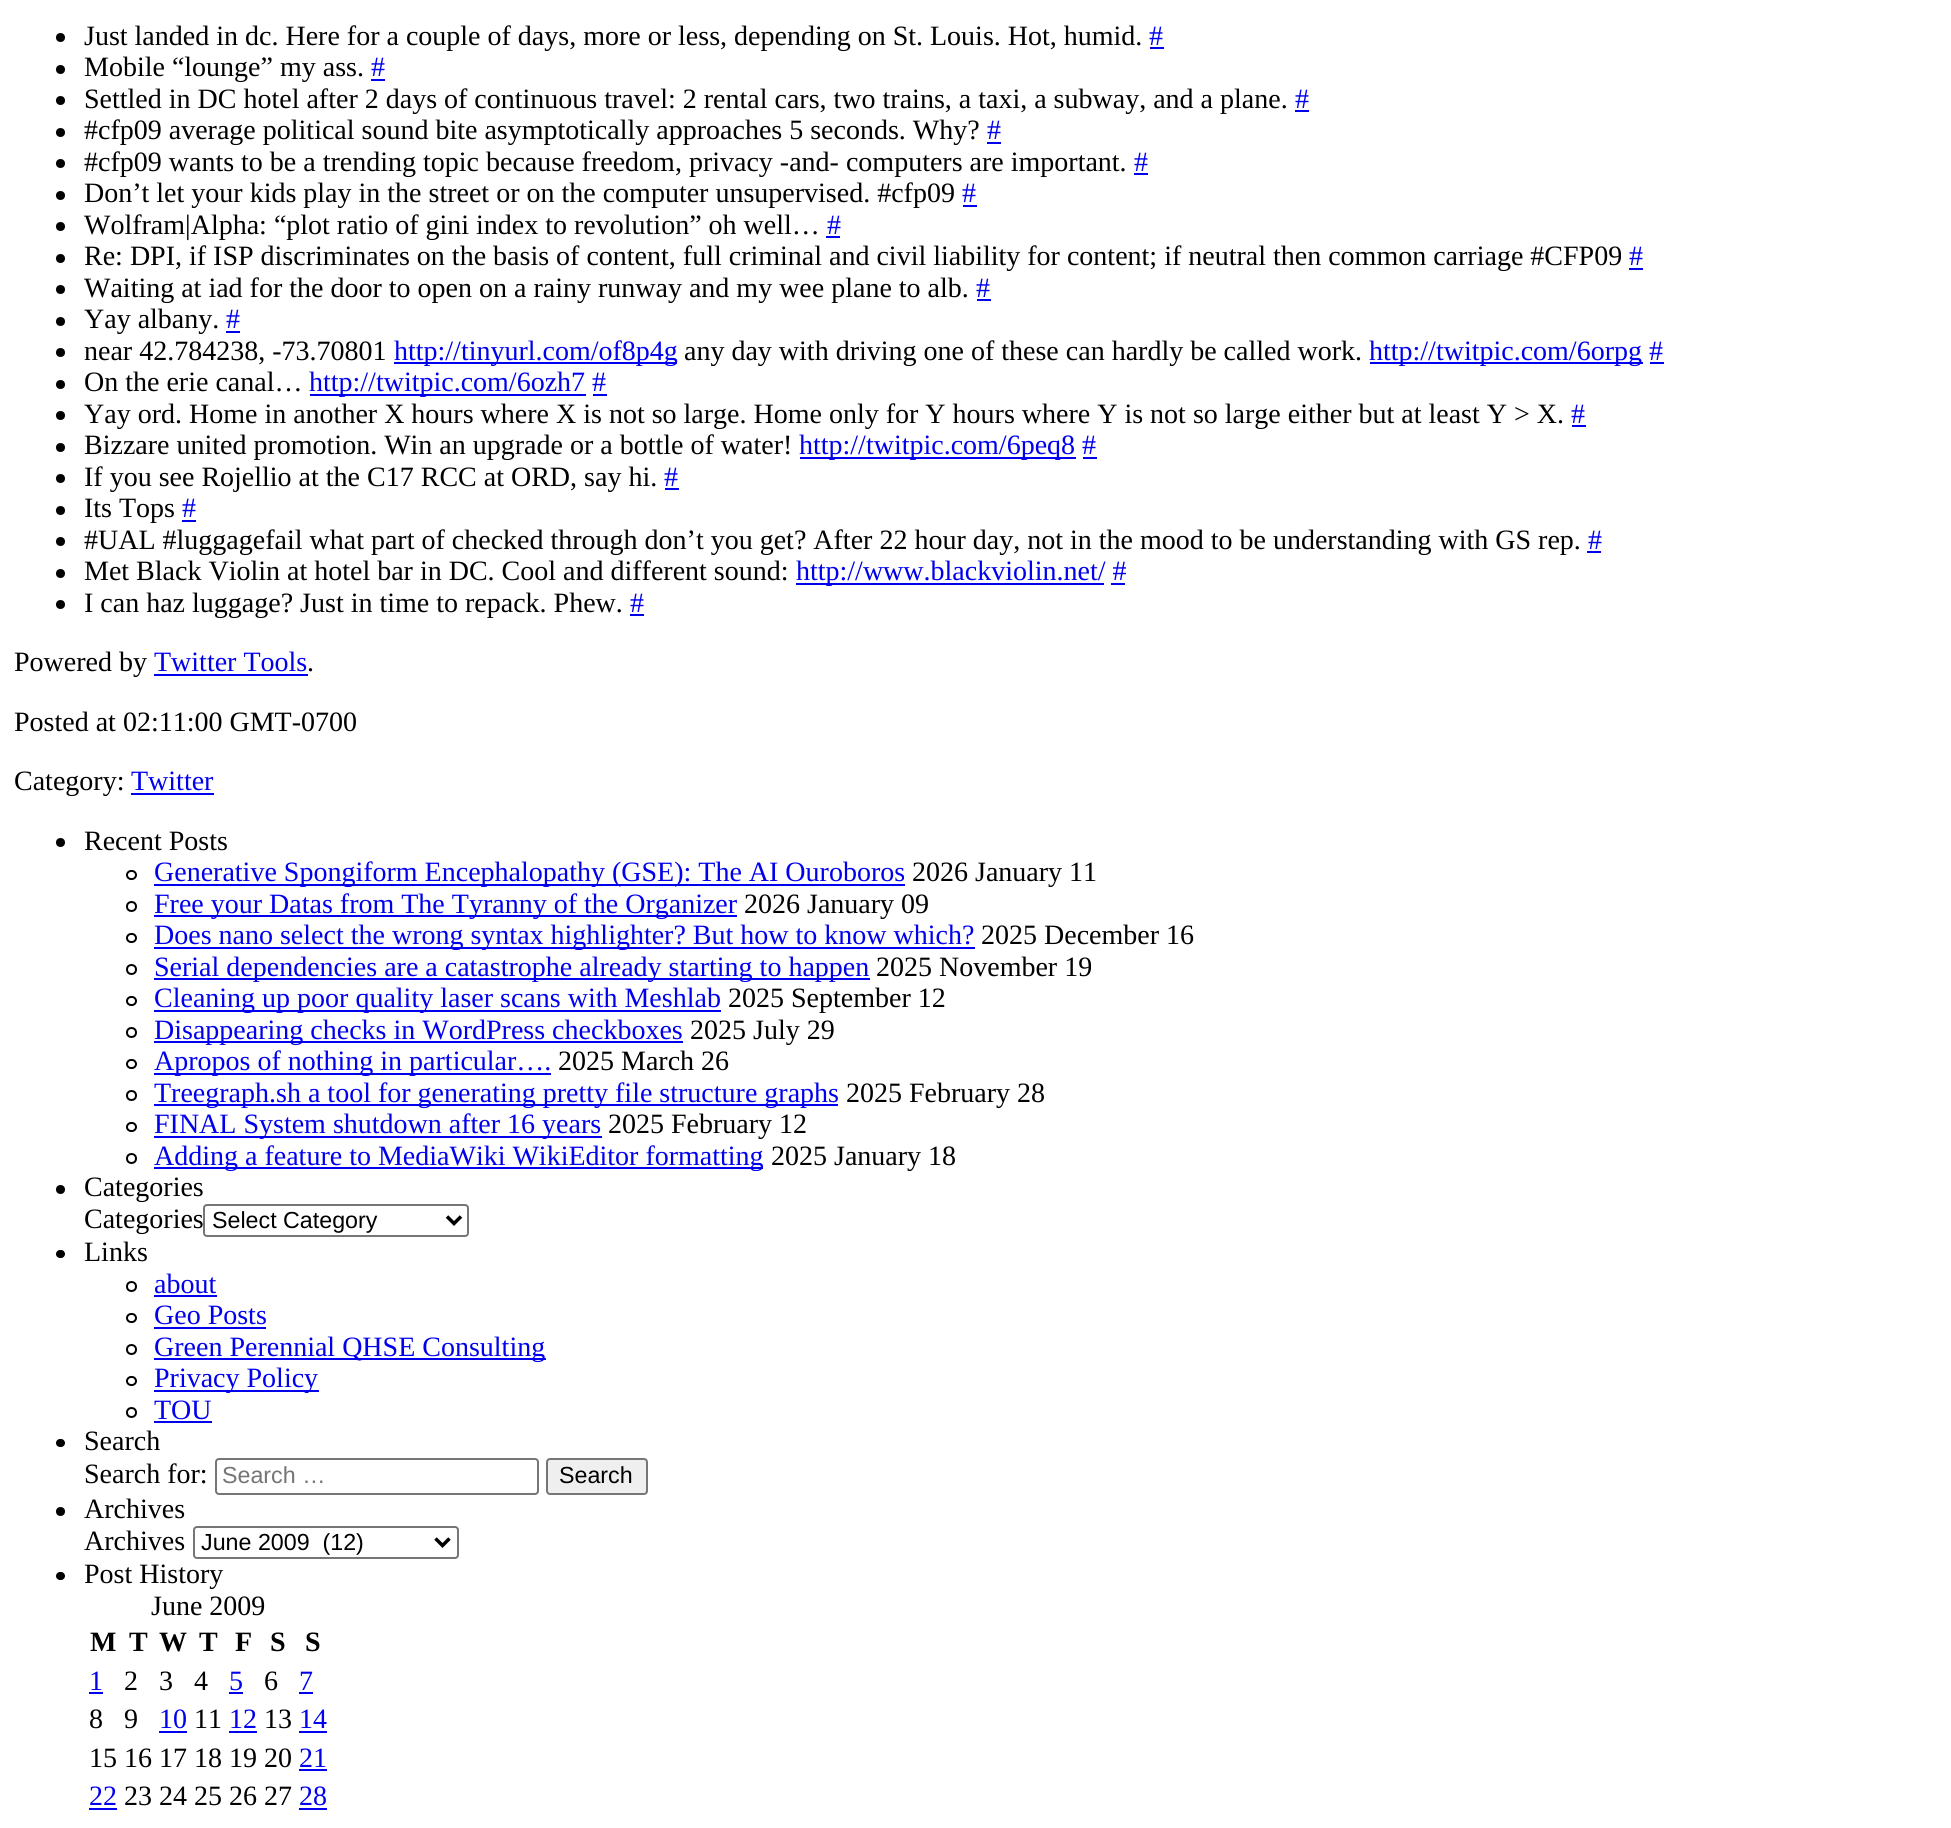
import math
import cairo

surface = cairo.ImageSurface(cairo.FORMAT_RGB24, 1951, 1828)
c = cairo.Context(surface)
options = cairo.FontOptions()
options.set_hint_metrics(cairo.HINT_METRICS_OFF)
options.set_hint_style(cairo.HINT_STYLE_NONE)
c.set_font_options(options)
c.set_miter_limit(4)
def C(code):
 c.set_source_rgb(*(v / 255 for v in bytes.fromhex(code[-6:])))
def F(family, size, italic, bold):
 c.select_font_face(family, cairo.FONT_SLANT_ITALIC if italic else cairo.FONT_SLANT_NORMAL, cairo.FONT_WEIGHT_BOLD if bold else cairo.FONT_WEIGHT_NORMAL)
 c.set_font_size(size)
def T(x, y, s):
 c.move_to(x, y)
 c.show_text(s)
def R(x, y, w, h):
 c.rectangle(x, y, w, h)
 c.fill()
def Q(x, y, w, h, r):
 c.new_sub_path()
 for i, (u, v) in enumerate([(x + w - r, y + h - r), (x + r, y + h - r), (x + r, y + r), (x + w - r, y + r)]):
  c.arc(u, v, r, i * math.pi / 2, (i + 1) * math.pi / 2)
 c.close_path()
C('ffffff')
c.paint()
C('000000')
c.arc(60.5,37.5,4.5,0,2 * math.pi)
c.fill()
F('Liberation Serif',28,0,0)
T(84,45,'Just landed in dc. Here for a couple of days, more or less, depending on St. Louis. Hot, humid.')
C('0000ee')
T(1149,45,'#')
R(1150,47,14,2)
C('000000')
c.new_path()
c.arc(60.5,69.5,4.5,0,2 * math.pi)
c.fill()
T(84,76,'Mobile “lounge” my ass.')
C('0000ee')
T(371,76,'#')
R(371,79,14,2)
C('000000')
c.new_path()
c.arc(60.5,100.5,4.5,0,2 * math.pi)
c.fill()
T(84,108,'Settled in DC hotel after 2 days of continuous travel: 2 rental cars, two trains, a taxi, a subway, and a plane.')
C('0000ee')
T(1295,108,'#')
R(1295,110,14,2)
C('000000')
c.new_path()
c.arc(60.5,132.5,4.5,0,2 * math.pi)
c.fill()
T(84,139,'#cfp09 average political sound bite asymptotically approaches 5 seconds. Why?')
C('0000ee')
T(987,139,'#')
R(987,142,14,2)
C('000000')
c.new_path()
c.arc(60.5,163.5,4.5,0,2 * math.pi)
c.fill()
T(84,171,'#cfp09 wants to be a trending topic because freedom, privacy -and- computers are important.')
C('0000ee')
T(1134,171,'#')
R(1134,173,14,2)
C('000000')
c.new_path()
c.arc(60.5,195.5,4.5,0,2 * math.pi)
c.fill()
T(84,202,'Don’t let your kids play in the street or on the computer unsupervised. #cfp09')
C('0000ee')
T(962,202,'#')
R(963,205,14,2)
C('000000')
c.new_path()
c.arc(60.5,226.5,4.5,0,2 * math.pi)
c.fill()
T(84,234,'Wolfram|Alpha: “plot ratio of gini index to revolution” oh well…')
C('0000ee')
T(827,234,'#')
R(826,236,14,2)
C('000000')
c.new_path()
c.arc(60.5,258.5,4.5,0,2 * math.pi)
c.fill()
T(84,265,'Re: DPI, if ISP discriminates on the basis of content, full criminal and civil liability for content; if neutral then common carriage #CFP09')
C('0000ee')
T(1629,265,'#')
R(1629,268,14,2)
C('000000')
c.new_path()
c.arc(60.5,289.5,4.5,0,2 * math.pi)
c.fill()
T(84,297,'Waiting at iad for the door to open on a rainy runway and my wee plane to alb.')
C('0000ee')
T(976,297,'#')
R(977,299,14,2)
C('000000')
c.new_path()
c.arc(60.5,321.5,4.5,0,2 * math.pi)
c.fill()
T(84,328,'Yay albany.')
C('0000ee')
T(226,328,'#')
R(226,331,14,2)
C('000000')
c.new_path()
c.arc(60.5,352.5,4.5,0,2 * math.pi)
c.fill()
T(84,360,'near 42.784238, -73.70801')
C('0000ee')
R(394,362,283,2)
T(394,360,'http://tinyurl.com/of8p4g')
C('000000')
T(684,360,'any day with driving one of these can hardly be called work.')
C('0000ee')
R(1370,362,273,2)
T(1369,360,'http://twitpic.com/6orpg #')
R(1650,362,14,2)
C('000000')
c.new_path()
c.arc(60.5,384.5,4.5,0,2 * math.pi)
c.fill()
T(84,391,'On the erie canal…')
C('0000ee')
R(310,394,276,2)
T(309,391,'http://twitpic.com/6ozh7 #')
R(593,394,14,2)
C('000000')
c.new_path()
c.arc(60.5,415.5,4.5,0,2 * math.pi)
c.fill()
T(84,423,'Yay ord. Home in another X hours where X is not so large. Home only for Y hours where Y is not so large either but at least Y > X.')
C('0000ee')
T(1571,423,'#')
R(1572,425,14,2)
C('000000')
c.new_path()
c.arc(60.5,447.5,4.5,0,2 * math.pi)
c.fill()
T(84,454,'Bizzare united promotion. Win an upgrade or a bottle of water!')
C('0000ee')
R(800,457,276,2)
T(799,454,'http://twitpic.com/6peq8 #')
R(1083,457,14,2)
C('000000')
c.new_path()
c.arc(60.5,478.5,4.5,0,2 * math.pi)
c.fill()
T(84,486,'If you see Rojellio at the C17 RCC at ORD, say hi.')
C('0000ee')
T(664,486,'#')
R(665,488,14,2)
C('000000')
c.new_path()
c.arc(60.5,510.5,4.5,0,2 * math.pi)
c.fill()
T(84,517,'Its Tops')
C('0000ee')
T(182,517,'#')
R(182,520,14,2)
C('000000')
c.new_path()
c.arc(60.5,541.5,4.5,0,2 * math.pi)
c.fill()
T(84,549,'#UAL #luggagefail what part of checked through don’t you get? After 22 hour day, not in the mood to be understanding with GS rep.')
C('0000ee')
T(1588,549,'#')
R(1587,551,14,2)
C('000000')
c.new_path()
c.arc(60.5,573.5,4.5,0,2 * math.pi)
c.fill()
T(84,580,'Met Black Violin at hotel bar in DC. Cool and different sound:')
C('0000ee')
R(796,583,308,2)
T(796,580,'http://www.blackviolin.net/ #')
R(1111,583,14,2)
C('000000')
c.new_path()
c.arc(60.5,604.5,4.5,0,2 * math.pi)
c.fill()
T(84,612,'I can haz luggage? Just in time to repack. Phew.')
C('0000ee')
T(630,612,'#')
R(630,614,14,2)
C('000000')
T(14,671,'Powered by')
C('0000ee')
T(154,671,'Twitter Tools')
R(154,674,154,2)
C('000000')
T(307,671,'.')
T(14,731,'Posted at 02:11:00 GMT-0700')
T(14,790,'Category:')
C('0000ee')
T(131,790,'Twitter')
R(131,793,83,2)
C('000000')
c.new_path()
c.arc(60.5,842.5,4.5,0,2 * math.pi)
c.fill()
T(84,850,'Recent Posts')
Q(127,871,9,8,4)
c.stroke()
C('0000ee')
R(154,884,751,2)
T(154,881,'Generative Spongiform Encephalopathy (GSE): The AI Ouroboros')
C('000000')
T(912,881,'2026 January 11')
c.new_path()
c.arc(131.5,906.5,4.5,0,2 * math.pi)
c.stroke()
C('0000ee')
R(154,915,583,2)
T(154,913,'Free your Datas from The Tyranny of the Organizer')
C('000000')
T(744,913,'2026 January 09')
Q(127,934,9,8,4)
c.stroke()
C('0000ee')
R(154,947,821,2)
T(154,944,'Does nano select the wrong syntax highlighter? But how to know which?')
C('000000')
T(981,944,'2025 December 16')
c.new_path()
c.arc(131.5,969.5,4.5,0,2 * math.pi)
c.stroke()
C('0000ee')
R(154,978,716,2)
T(154,976,'Serial dependencies are a catastrophe already starting to happen')
C('000000')
T(876,976,'2025 November 19')
Q(127,997,9,8,4)
c.stroke()
C('0000ee')
R(154,1010,567,2)
T(154,1007,'Cleaning up poor quality laser scans with Meshlab')
C('000000')
T(728,1007,'2025 September 12')
c.new_path()
c.arc(131.5,1032.5,4.5,0,2 * math.pi)
c.stroke()
C('0000ee')
R(154,1041,529,2)
T(154,1039,'Disappearing checks in WordPress checkboxes')
C('000000')
T(690,1039,'2025 July 29')
Q(127,1060,9,8,4)
c.stroke()
C('0000ee')
R(154,1073,397,2)
T(154,1070,'Apropos of nothing in particular….')
C('000000')
T(558,1070,'2025 March 26')
c.new_path()
c.arc(131.5,1095.5,4.5,0,2 * math.pi)
c.stroke()
C('0000ee')
R(154,1104,684,2)
T(154,1102,'Treegraph.sh a tool for generating pretty file structure graphs')
C('000000')
T(846,1102,'2025 February 28')
Q(127,1123,9,8,4)
c.stroke()
C('0000ee')
R(154,1136,448,2)
T(154,1133,'FINAL System shutdown after 16 years')
C('000000')
T(608,1133,'2025 February 12')
c.new_path()
c.arc(131.5,1158.5,4.5,0,2 * math.pi)
c.stroke()
C('0000ee')
R(154,1167,609,2)
T(154,1165,'Adding a feature to MediaWiki WikiEditor formatting')
C('000000')
T(771,1165,'2025 January 18')
c.new_path()
c.arc(60.5,1189.5,4.5,0,2 * math.pi)
c.fill()
T(84,1196,'Categories')
T(84,1228,'Categories')
Q(204,1205,264,31,3)
C('767676')
c.stroke()
c.new_path()
c.move_to(447,1216.5)
c.line_to(454,1223.5)
c.line_to(461,1216.5)
C('000000')
c.set_line_width(3.5)
c.stroke()
F('Liberation Sans',23.25,0,0)
T(212,1228,'Select Category')
Q(56,1250,9,8,4)
c.fill()
F('Liberation Serif',28,0,0)
T(84,1261,'Links')
c.new_path()
c.arc(131.5,1286.5,4.5,0,2 * math.pi)
c.set_line_width(2)
c.stroke()
C('0000ee')
T(154,1293,'about')
R(154,1295,63,2)
Q(127,1314,9,8,4)
C('000000')
c.stroke()
C('0000ee')
T(154,1324,'Geo Posts')
R(154,1327,112,2)
c.new_path()
c.arc(131.5,1349.5,4.5,0,2 * math.pi)
C('000000')
c.stroke()
C('0000ee')
R(154,1358,392,2)
T(154,1356,'Green Perennial QHSE Consulting')
Q(127,1377,9,8,4)
C('000000')
c.stroke()
C('0000ee')
R(154,1390,165,2)
T(154,1387,'Privacy Policy')
c.new_path()
c.arc(131.5,1412.5,4.5,0,2 * math.pi)
C('000000')
c.stroke()
C('0000ee')
T(154,1419,'TOU')
R(154,1421,58,2)
C('000000')
Q(56,1439,9,8,4)
c.fill()
T(84,1450,'Search')
T(84,1483,'Search for:')
Q(216,1459,322,35,3)
C('767676')
c.stroke()
F('Liberation Sans',23.25,0,0)
C('757575')
T(222,1483,'Search …')
C('efefef')
Q(547,1459,100,35,3)
c.fill_preserve()
C('767676')
c.stroke()
C('000000')
T(559,1483,'Search')
c.new_path()
c.arc(60.5,1511.5,4.5,0,2 * math.pi)
c.fill()
F('Liberation Serif',28,0,0)
T(84,1518,'Archives')
T(84,1550,'Archives')
Q(194,1527,264,31,3)
C('767676')
c.stroke()
c.new_path()
c.move_to(435.5,1538.5)
c.line_to(442.5,1545.5)
c.line_to(449.5,1538.5)
C('000000')
c.set_line_width(3.5)
c.stroke()
F('Liberation Sans',23.25,0,0)
T(201,1550,'June 2009  (12)')
Q(56,1572,9,8,4)
c.fill()
F('Liberation Serif',28,0,0)
T(84,1583,'Post History')
T(151,1615,'June 2009')
F('Liberation Serif',28,0,1)
T(90,1651,'M')
T(129,1651,'T')
T(159,1651,'W')
T(199,1651,'T')
T(235,1651,'F')
T(270,1651,'S')
T(305,1651,'S')
F('Liberation Serif',28,0,0)
C('0000ee')
T(89,1690,'1')
R(89,1692,14,2)
C('000000')
T(124,1690,'2')
T(159,1690,'3')
T(194,1690,'4')
C('0000ee')
T(229,1690,'5')
R(229,1692,14,2)
C('000000')
T(264,1690,'6')
C('0000ee')
T(299,1690,'7')
R(299,1692,14,2)
C('000000')
T(89,1728,'8')
T(124,1728,'9')
C('0000ee')
T(159,1728,'10')
R(159,1731,28,2)
C('000000')
T(194,1728,'11')
C('0000ee')
T(229,1728,'12')
R(229,1731,28,2)
C('000000')
T(264,1728,'13')
C('0000ee')
T(299,1728,'14')
R(299,1731,28,2)
C('000000')
T(89,1767,'15 16 17 18 19 20')
C('0000ee')
T(299,1767,'21')
R(299,1769,28,2)
T(89,1805,'22')
R(89,1808,28,2)
C('000000')
T(124,1805,'23 24 25 26 27')
C('0000ee')
T(299,1805,'28')
R(299,1808,28,2)
surface.write_to_png('o.png')
